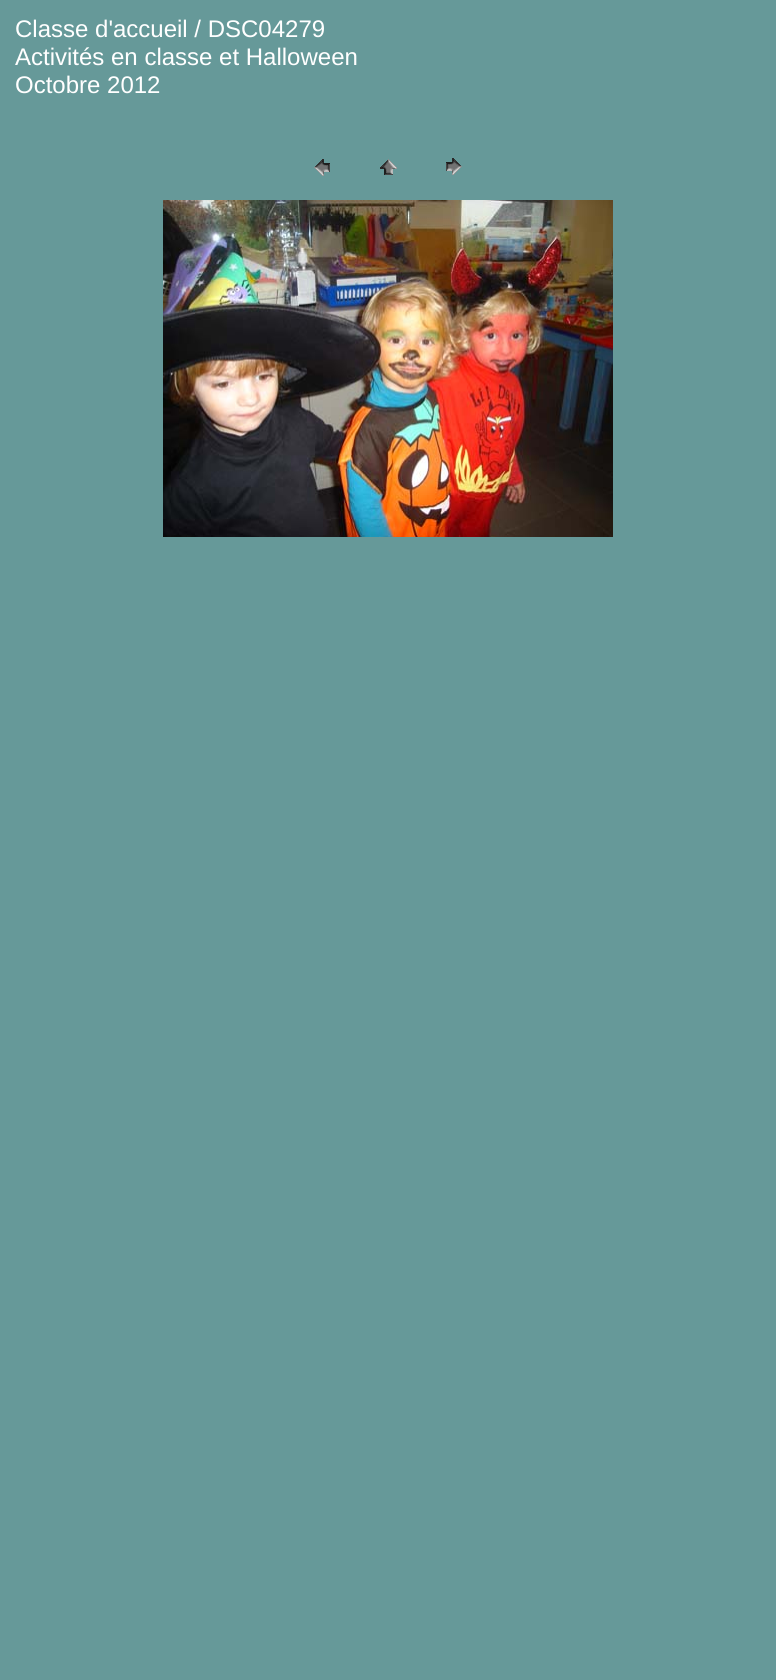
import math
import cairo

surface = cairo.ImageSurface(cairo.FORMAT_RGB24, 776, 1680)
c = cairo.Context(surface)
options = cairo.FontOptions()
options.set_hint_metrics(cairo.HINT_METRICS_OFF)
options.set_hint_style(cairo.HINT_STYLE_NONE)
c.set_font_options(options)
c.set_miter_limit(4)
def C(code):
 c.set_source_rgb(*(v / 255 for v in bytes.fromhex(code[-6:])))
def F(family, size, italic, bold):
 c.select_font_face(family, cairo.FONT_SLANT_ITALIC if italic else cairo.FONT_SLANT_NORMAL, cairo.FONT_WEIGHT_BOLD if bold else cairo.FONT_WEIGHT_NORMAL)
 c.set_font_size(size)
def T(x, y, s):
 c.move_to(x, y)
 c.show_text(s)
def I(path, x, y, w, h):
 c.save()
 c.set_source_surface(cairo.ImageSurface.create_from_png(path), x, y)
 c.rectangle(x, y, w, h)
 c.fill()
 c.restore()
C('669999')
c.paint()
F('Liberation Sans',24,0,0)
C('ffffff')
T(15,37,'Classe d\'accueil / DSC04279')
T(15,65,'Activités en classe et Halloween')
T(15,93,'Octobre 2012')
I('1.png',314,159,16,17)
I('2.png',380,159,17,16)
I('3.png',446,158,16,17)
I('4.png',163,200,450,337)
surface.write_to_png('o.png')
